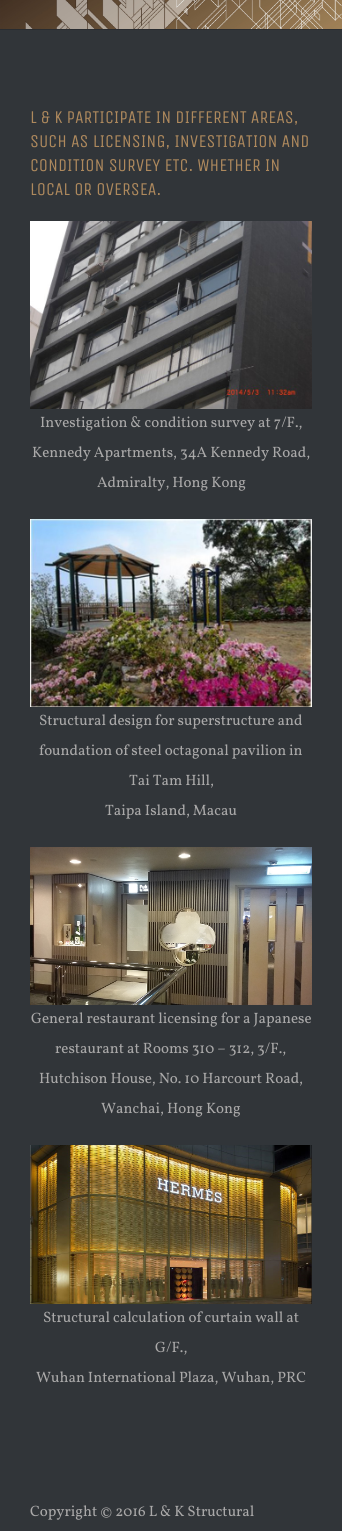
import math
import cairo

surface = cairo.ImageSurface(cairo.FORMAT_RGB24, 342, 1531)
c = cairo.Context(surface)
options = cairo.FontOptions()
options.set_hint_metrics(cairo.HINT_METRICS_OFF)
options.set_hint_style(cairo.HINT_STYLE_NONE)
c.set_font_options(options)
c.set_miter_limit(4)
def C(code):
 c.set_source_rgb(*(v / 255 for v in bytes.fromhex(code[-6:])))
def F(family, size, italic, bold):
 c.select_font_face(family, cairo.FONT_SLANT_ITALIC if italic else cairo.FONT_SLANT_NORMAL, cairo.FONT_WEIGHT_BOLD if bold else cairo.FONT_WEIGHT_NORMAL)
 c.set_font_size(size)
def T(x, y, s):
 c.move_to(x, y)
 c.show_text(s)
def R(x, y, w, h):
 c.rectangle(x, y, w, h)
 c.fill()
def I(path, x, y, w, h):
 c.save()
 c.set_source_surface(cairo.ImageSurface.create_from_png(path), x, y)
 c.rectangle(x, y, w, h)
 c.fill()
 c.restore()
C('313539')
c.paint()
I('1.png',0,0,342,29)
C('292c30')
R(0,29,342,1)
F('Unica One',18,0,0)
C('ae895d')
T(30,123,'L & K PARTICIPATE IN DIFFERENT AREAS,')
T(30,147,'SUCH AS LICENSING, INVESTIGATION AND')
T(30,171,'CONDITION SURVEY ETC. WHETHER IN')
T(30,195,'LOCAL OR OVERSEA.')
I('2.png',30,221,282,188)
F('Vollkorn',15,0,0)
C('aaa9a9')
T(40,427,'Investigation & condition survey at 7/F.,')
T(32,457,'Kennedy Apartments, 34A Kennedy Road,')
T(97,487,'Admiralty, Hong Kong')
I('3.png',30,519,282,188)
T(39,725,'Structural design for superstructure and')
T(39,755,'foundation of steel octagonal pavilion in')
T(129,785,'Tai Tam Hill,')
T(105,815,'Taipa Island, Macau')
I('4.png',30,847,282,158)
T(31,1023,'General restaurant licensing for a Japanese')
T(55,1053,'restaurant at Rooms 310 – 312, 3/F.,')
T(39,1083,'Hutchison House, No. 10 Harcourt Road,')
T(101,1113,'Wanchai, Hong Kong')
I('5.png',30,1145,282,159)
T(43,1322,'Structural calculation of curtain wall at')
T(155,1352,'G/F.,')
T(36,1382,'Wuhan International Plaza, Wuhan, PRC')
T(30,1516,'Copyright © 2016 L & K Structural')
surface.write_to_png('o.png')
